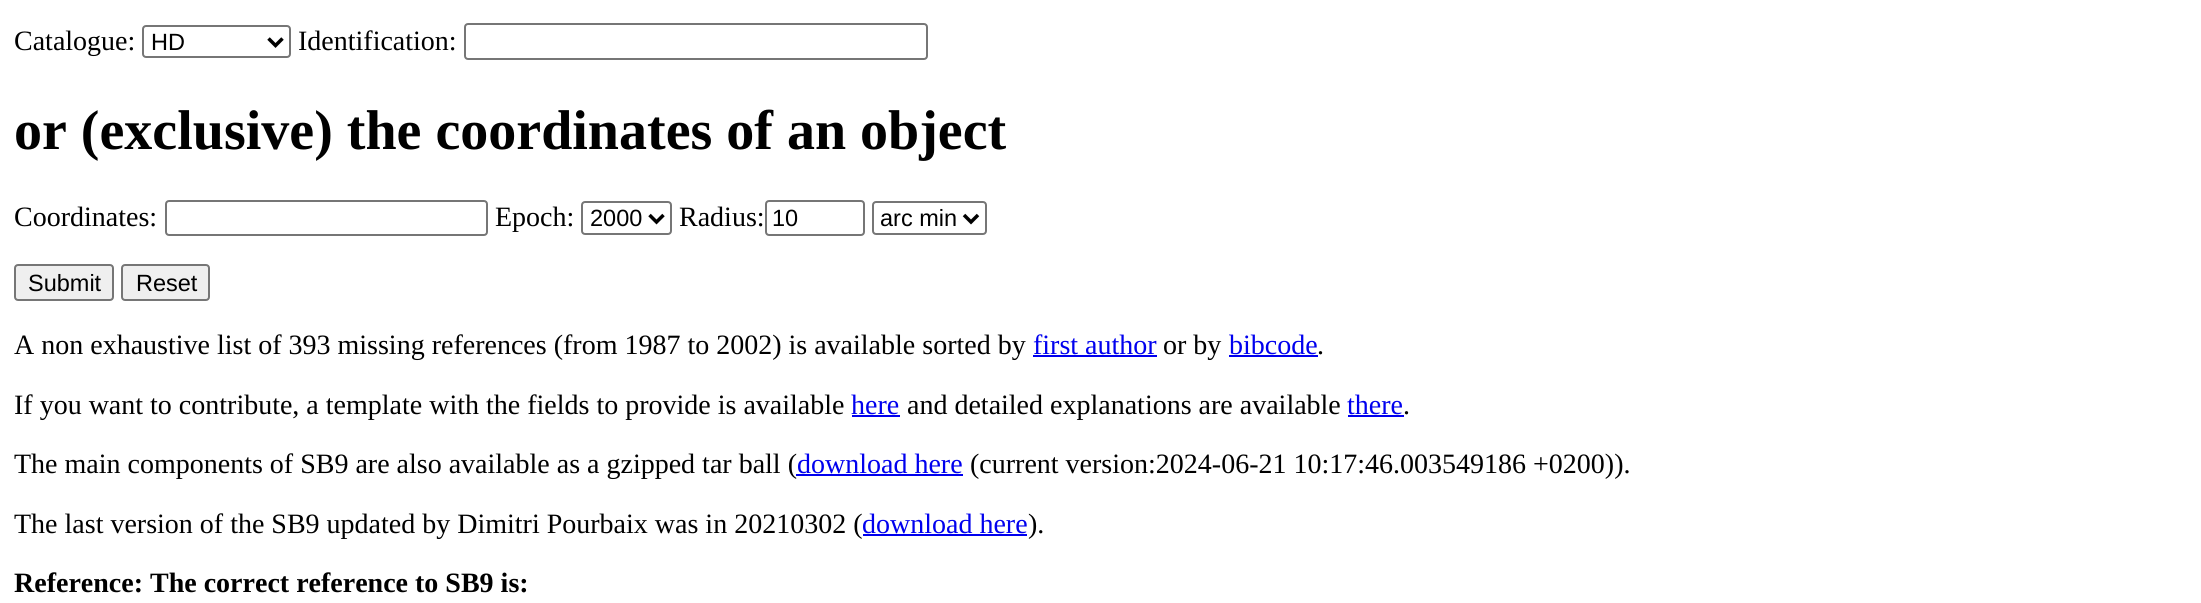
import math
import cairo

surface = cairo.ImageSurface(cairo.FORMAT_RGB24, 2201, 603)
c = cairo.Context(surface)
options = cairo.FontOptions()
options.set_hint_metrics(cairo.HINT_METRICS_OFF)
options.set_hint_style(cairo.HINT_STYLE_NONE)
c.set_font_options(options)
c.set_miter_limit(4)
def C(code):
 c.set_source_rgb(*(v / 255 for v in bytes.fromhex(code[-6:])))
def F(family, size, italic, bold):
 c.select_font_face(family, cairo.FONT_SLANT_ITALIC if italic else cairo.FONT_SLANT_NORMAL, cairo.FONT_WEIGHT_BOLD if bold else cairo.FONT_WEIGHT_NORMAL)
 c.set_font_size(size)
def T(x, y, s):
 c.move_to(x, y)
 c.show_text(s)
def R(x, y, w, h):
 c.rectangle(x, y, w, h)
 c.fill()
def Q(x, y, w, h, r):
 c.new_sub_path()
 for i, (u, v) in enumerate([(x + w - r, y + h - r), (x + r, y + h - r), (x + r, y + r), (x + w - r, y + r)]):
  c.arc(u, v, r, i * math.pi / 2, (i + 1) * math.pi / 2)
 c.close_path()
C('ffffff')
c.paint()
F('Liberation Serif',28,0,0)
C('000000')
T(14,50,'Catalogue:')
Q(143,26,147,31,3)
C('767676')
c.stroke()
c.new_path()
c.move_to(268.5,38.5)
c.line_to(275.5,45.5)
c.line_to(282.5,38.5)
C('000000')
c.set_line_width(3.5)
c.stroke()
F('Liberation Sans',23.5,0,0)
T(151,50,'HD')
F('Liberation Serif',28,0,0)
T(298,50,'Identification:')
Q(465,24,462,35,3)
C('767676')
c.set_line_width(2)
c.stroke()
F('Liberation Serif',56,0,1)
C('000000')
T(14,149,'or (exclusive) the coordinates of an object')
F('Liberation Serif',28,0,0)
T(14,226,'Coordinates:')
Q(166,201,321,34,3)
C('767676')
c.stroke()
C('000000')
T(495,226,'Epoch:')
Q(582,202,89,32,3)
C('767676')
c.stroke()
c.new_path()
c.move_to(649.5,215)
c.line_to(656.5,222)
c.line_to(663.5,215)
C('000000')
c.set_line_width(3.5)
c.stroke()
F('Liberation Sans',23.5,0,0)
T(590,226,'2000')
F('Liberation Serif',28,0,0)
T(679,226,'Radius:')
Q(766,201,98,34,3)
C('767676')
c.set_line_width(2)
c.stroke()
F('Liberation Sans',23.5,0,0)
C('000000')
T(772,226,'10')
Q(873,202,113,32,3)
C('767676')
c.stroke()
c.new_path()
c.move_to(964,215)
c.line_to(971,222)
c.line_to(978,215)
C('000000')
c.set_line_width(3.5)
c.stroke()
T(880,226,'arc min')
C('efefef')
Q(15,265,98,35,3)
c.fill_preserve()
C('767676')
c.set_line_width(2)
c.stroke()
C('000000')
T(28,291,'Submit')
C('efefef')
Q(122,265,87,35,3)
c.fill_preserve()
C('767676')
c.stroke()
C('000000')
T(136,291,'Reset')
F('Liberation Serif',28,0,0)
T(14,354,'A non exhaustive list of 393 missing references (from 1987 to 2002) is available sorted by')
C('0000ee')
T(1033,354,'first author')
R(1033,355,124,2)
C('000000')
T(1163,354,'or by')
C('0000ee')
T(1229,354,'bibcode')
R(1229,355,89,2)
C('000000')
T(1317,354,'.')
T(14,414,'If you want to contribute, a template with the fields to provide is available')
C('0000ee')
T(851,414,'here')
R(852,415,48,2)
C('000000')
T(907,414,'and detailed explanations are available')
C('0000ee')
T(1347,414,'there')
R(1348,415,56,2)
C('000000')
T(1403,414,'.')
T(14,473,'The main components of SB9 are also available as a gzipped tar ball (')
C('0000ee')
T(797,473,'download here')
R(796,474,167,2)
C('000000')
T(970,473,'(current version:2024-06-21 10:17:46.003549186 +0200)).')
T(14,533,'The last version of the SB9 updated by Dimitri Pourbaix was in 20210302 (')
C('0000ee')
T(862,533,'download here')
R(863,534,164,2)
C('000000')
T(1028,533,').')
F('Liberation Serif',28,0,1)
T(14,592,'Reference: The correct reference to SB9 is:')
surface.write_to_png('o.png')
